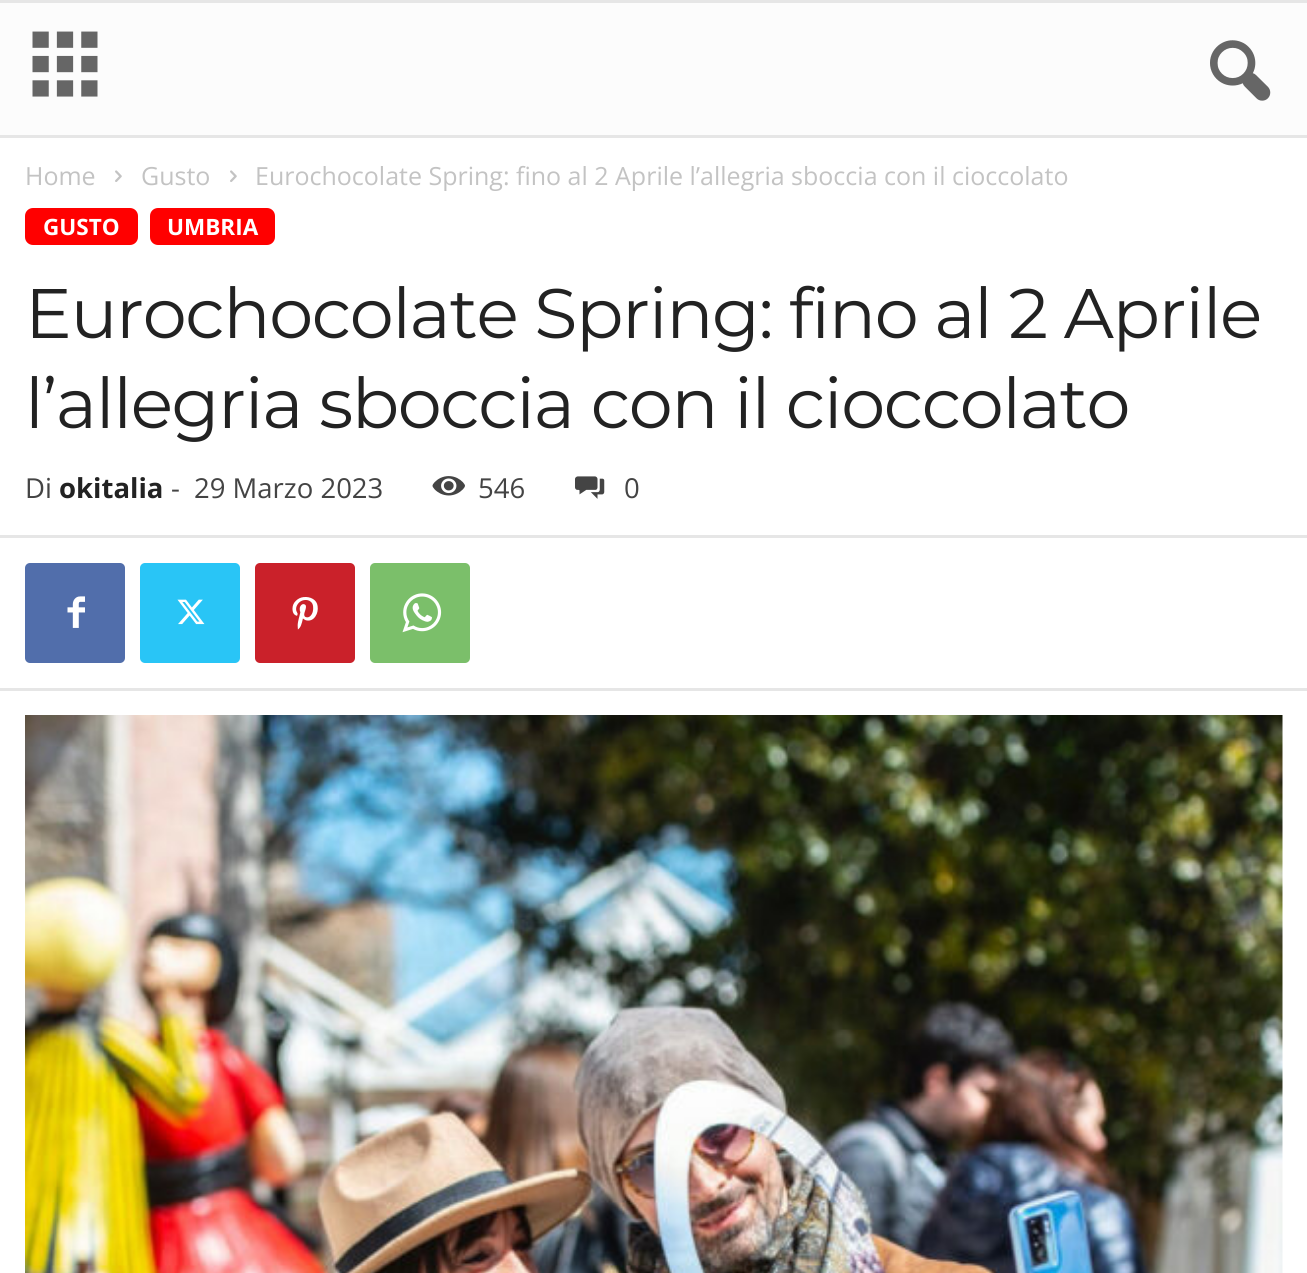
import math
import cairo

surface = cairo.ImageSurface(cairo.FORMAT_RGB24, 1307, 1273)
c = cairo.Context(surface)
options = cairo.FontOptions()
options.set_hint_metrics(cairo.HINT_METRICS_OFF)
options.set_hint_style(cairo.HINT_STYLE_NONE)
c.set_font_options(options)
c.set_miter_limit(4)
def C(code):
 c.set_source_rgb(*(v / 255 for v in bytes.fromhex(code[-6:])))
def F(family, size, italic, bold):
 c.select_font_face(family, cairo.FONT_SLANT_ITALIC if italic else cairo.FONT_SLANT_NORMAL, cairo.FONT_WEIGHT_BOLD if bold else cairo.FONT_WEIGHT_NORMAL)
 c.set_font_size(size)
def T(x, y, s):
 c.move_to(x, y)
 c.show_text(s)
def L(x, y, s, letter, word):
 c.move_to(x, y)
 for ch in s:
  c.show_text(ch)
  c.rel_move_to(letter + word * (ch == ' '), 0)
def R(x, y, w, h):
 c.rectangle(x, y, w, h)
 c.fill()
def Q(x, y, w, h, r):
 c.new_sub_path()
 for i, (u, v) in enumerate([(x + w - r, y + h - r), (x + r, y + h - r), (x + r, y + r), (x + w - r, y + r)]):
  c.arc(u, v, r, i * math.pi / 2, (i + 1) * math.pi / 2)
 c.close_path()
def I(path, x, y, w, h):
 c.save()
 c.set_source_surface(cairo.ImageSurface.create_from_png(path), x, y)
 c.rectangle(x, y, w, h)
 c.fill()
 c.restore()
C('ffffff')
c.paint()
C('fcfcfc')
R(0,3,1307,132)
C('e6e6e6')
R(0,0,1307,3)
R(0,135,1307,3)
I('1.png',32,31,66,66)
I('2.png',1210,40,61,61)
F('Open Sans',25,0,0)
C('c3c3c3')
T(25,185,'Home')
I('3.png',115,170,7,12)
T(141,185,'Gusto')
I('3.png',230,170,7,12)
T(255,185,'Eurochocolate Spring: fino al 2 Aprile l’allegria sboccia con il cioccolato')
C('ff0000')
Q(25,208,113,37,8)
c.fill()
F('Open Sans',22.5,0,1)
C('ffffff')
T(43,235,'GUSTO')
C('ff0000')
Q(150,208,125,37,8)
c.fill()
C('ffffff')
T(167,235,'UMBRIA')
F('Montserrat',70,0,0)
C('222222')
L(25,338,'Eurochocolate Spring: fino al 2 Aprile',-1.4,0)
L(25,428,'l’allegria sboccia con il cioccolato',-1.4,0)
F('Open Sans',27.5,0,0)
C('444444')
T(25,498,'Di')
F('Open Sans',27.5,0,1)
C('222222')
T(59,498,'okitalia')
F('Open Sans',27.5,0,0)
C('444444')
T(171,498,'-')
T(194,498,'29 Marzo 2023')
I('4.png',432,476,33,20)
T(478,498,'546')
I('5.png',575,476,30,23)
T(624,498,'0')
C('e6e6e6')
R(0,535,1307,3)
C('516eab')
Q(25,563,100,100,5)
c.fill()
I('6.png',67,596,18,32)
C('29c5f6')
Q(140,563,100,100,5)
c.fill()
I('7.png',177,599,28,26)
C('ca212a')
Q(255,563,100,100,5)
c.fill()
I('8.png',292,597,26,33)
C('7bbf6a')
Q(370,563,100,100,5)
c.fill()
I('9.png',402,593,40,40)
C('e6e6e6')
R(0,688,1307,3)
I('10.png',25,715,1258,558)
surface.write_to_png('o.png')
